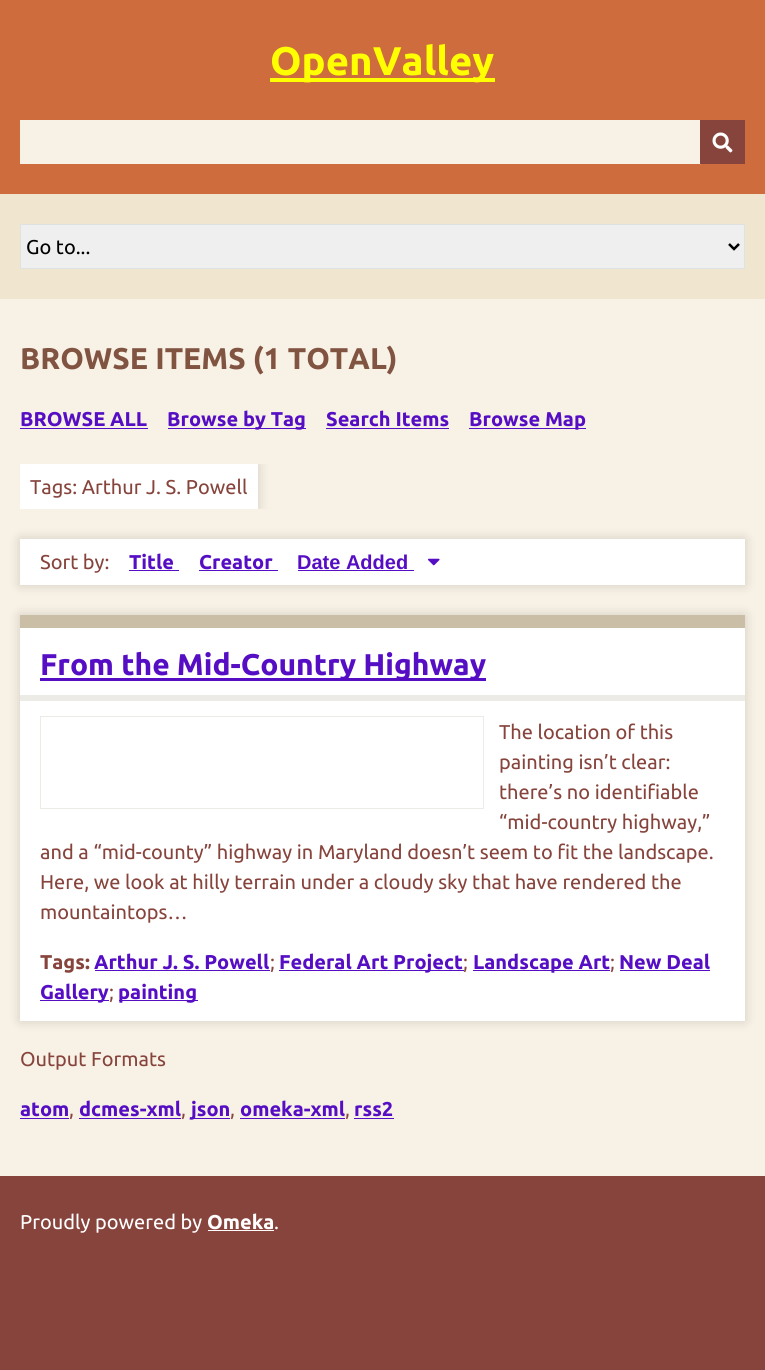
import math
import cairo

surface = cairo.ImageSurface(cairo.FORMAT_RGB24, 765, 1370)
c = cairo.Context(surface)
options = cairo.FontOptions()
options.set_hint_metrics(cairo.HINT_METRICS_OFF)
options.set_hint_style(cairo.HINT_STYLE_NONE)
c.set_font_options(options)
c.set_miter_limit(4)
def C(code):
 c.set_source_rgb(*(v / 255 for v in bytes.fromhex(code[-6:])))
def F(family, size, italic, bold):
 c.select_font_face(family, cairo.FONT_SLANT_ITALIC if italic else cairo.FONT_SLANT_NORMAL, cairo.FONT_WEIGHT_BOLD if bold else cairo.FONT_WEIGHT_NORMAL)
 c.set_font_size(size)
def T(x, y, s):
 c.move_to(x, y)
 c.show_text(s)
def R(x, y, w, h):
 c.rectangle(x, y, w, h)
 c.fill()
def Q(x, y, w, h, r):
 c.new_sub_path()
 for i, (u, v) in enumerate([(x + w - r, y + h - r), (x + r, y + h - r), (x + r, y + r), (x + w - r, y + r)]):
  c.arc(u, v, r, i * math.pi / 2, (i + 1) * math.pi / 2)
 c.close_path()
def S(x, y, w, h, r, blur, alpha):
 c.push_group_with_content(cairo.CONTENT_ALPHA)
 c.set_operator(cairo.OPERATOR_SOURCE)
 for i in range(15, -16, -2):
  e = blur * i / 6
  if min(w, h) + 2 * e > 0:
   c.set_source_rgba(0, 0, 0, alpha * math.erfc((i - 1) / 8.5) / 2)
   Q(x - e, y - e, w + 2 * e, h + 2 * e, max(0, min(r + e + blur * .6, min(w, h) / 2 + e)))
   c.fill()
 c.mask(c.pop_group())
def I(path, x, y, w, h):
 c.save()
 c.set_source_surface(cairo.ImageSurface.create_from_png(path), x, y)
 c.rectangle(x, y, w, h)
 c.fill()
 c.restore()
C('86443c')
c.paint()
C('ce6c3e')
R(0,0,765,194)
C('d88965')
R(700,164,1,1)
C('ffff00')
R(270,78,225,4)
F('Ubuntu',40,0,1)
T(270,75,'OpenValley')
C('f8f1e5')
R(20,120,680,44)
C('86443c')
R(700,120,45,44)
I('1.png',712,132,21,21)
C('f0e6d0')
R(0,194,765,105)
C('efefef')
c.rectangle(20.5,224.5,724,44)
c.fill_preserve()
C('dfe2e2')
c.set_line_width(1)
c.stroke()
c.new_path()
c.move_to(729,244)
c.line_to(734,249)
c.line_to(739,244)
C('000000')
c.set_line_width(2.5)
c.stroke()
F('Ubuntu',20,0,0)
T(26,254,'Go to...')
C('f8f1e5')
R(0,299,765,877)
F('Ubuntu',30,0,1)
C('815442')
T(20,369,'BROWSE ITEMS (1 TOTAL)')
F('Ubuntu',20,0,1)
C('560ec4')
T(20,426,'BROWSE ALL')
R(20,428,128,1)
R(168,428,138,1)
T(167,426,'Browse by Tag')
T(326,426,'Search Items')
R(326,428,123,1)
R(469,428,117,1)
T(469,426,'Browse Map')
c.save()
c.rectangle(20,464,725,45)
c.clip()
C('000000')
S(20,464,238,45,0,6,.15)
c.restore()
C('ffffff')
R(20,464,238,45)
F('Ubuntu',20,0,0)
C('86443c')
T(30,494,'Tags: Arthur J. S. Powell')
C('000000')
S(20,539,725,46,0,6,.15)
C('ffffff')
R(20,539,725,46)
C('86443c')
T(40,569,'Sort by:')
F('Ubuntu',20,0,1)
C('560ec4')
T(129,569,'Title')
R(129,570,50,1)
T(199,569,'Creator')
R(199,570,79,1)
F('Liberation Sans',20,0,1)
T(297,569,'Date Added')
R(298,570,116,1)
I('2.png',428,558,12,8)
C('000000')
S(20,615,725,406,0,6,.15)
C('ffffff')
R(20,628,725,393)
C('cabfa6')
R(20,615,725,13)
C('ecebe6')
R(20,695,725,6)
C('560ec4')
R(40,678,446,3)
F('Ubuntu',30,0,1)
T(40,675,'From the Mid-Country Highway')
c.rectangle(40.5,716.5,443,92)
C('ecebe6')
c.set_line_width(1)
c.stroke()
F('Ubuntu',20,0,0)
C('86443c')
T(499,739,'The location of this')
T(499,769,'painting isn’t clear:')
T(499,799,'there’s no identifiable')
T(499,829,'“mid-country highway,”')
T(40,859,'and a “mid-county” highway in Maryland doesn’t seem to fit the landscape.')
T(40,889,'Here, we look at hilly terrain under a cloudy sky that have rendered the')
T(40,919,'mountaintops…')
F('Ubuntu',20,0,1)
T(40,969,'Tags:')
C('560ec4')
T(94,969,'Arthur J. S. Powell')
R(95,970,175,1)
F('Ubuntu',20,0,0)
C('86443c')
T(270,969,';')
C('560ec4')
R(279,970,185,1)
F('Ubuntu',20,0,1)
T(279,969,'Federal Art Project')
F('Ubuntu',20,0,0)
C('86443c')
T(463,969,';')
C('560ec4')
R(473,970,137,1)
F('Ubuntu',20,0,1)
T(473,969,'Landscape Art')
F('Ubuntu',20,0,0)
C('86443c')
T(610,969,';')
F('Ubuntu',20,0,1)
C('560ec4')
T(619,969,'New Deal')
R(620,970,90,1)
R(40,1000,69,1)
T(40,999,'Gallery')
F('Ubuntu',20,0,0)
C('86443c')
T(109,999,';')
C('560ec4')
R(119,1000,79,1)
F('Ubuntu',20,0,1)
T(118,999,'painting')
F('Ubuntu',20,0,0)
C('86443c')
T(20,1066,'Output Formats')
F('Ubuntu',20,0,1)
C('560ec4')
T(20,1116,'atom')
R(20,1118,49,1)
F('Ubuntu',20,0,0)
C('86443c')
T(69,1116,',')
F('Ubuntu',20,0,1)
C('560ec4')
T(79,1116,'dcmes-xml')
R(79,1118,102,1)
F('Ubuntu',20,0,0)
C('86443c')
T(181,1116,',')
C('560ec4')
R(190,1118,40,1)
F('Ubuntu',20,0,1)
T(191,1116,'json')
F('Ubuntu',20,0,0)
C('86443c')
T(230,1116,',')
F('Ubuntu',20,0,1)
C('560ec4')
T(240,1116,'omeka-xml')
R(240,1118,105,1)
F('Ubuntu',20,0,0)
C('86443c')
T(345,1116,',')
F('Ubuntu',20,0,1)
C('560ec4')
T(354,1116,'rss2')
R(354,1118,40,1)
F('Ubuntu',20,0,0)
C('ffffff')
T(20,1229,'Proudly powered by')
F('Ubuntu',20,0,1)
T(207,1229,'Omeka')
R(208,1230,66,1)
F('Ubuntu',20,0,0)
T(274,1229,'.')
surface.write_to_png('o.png')
